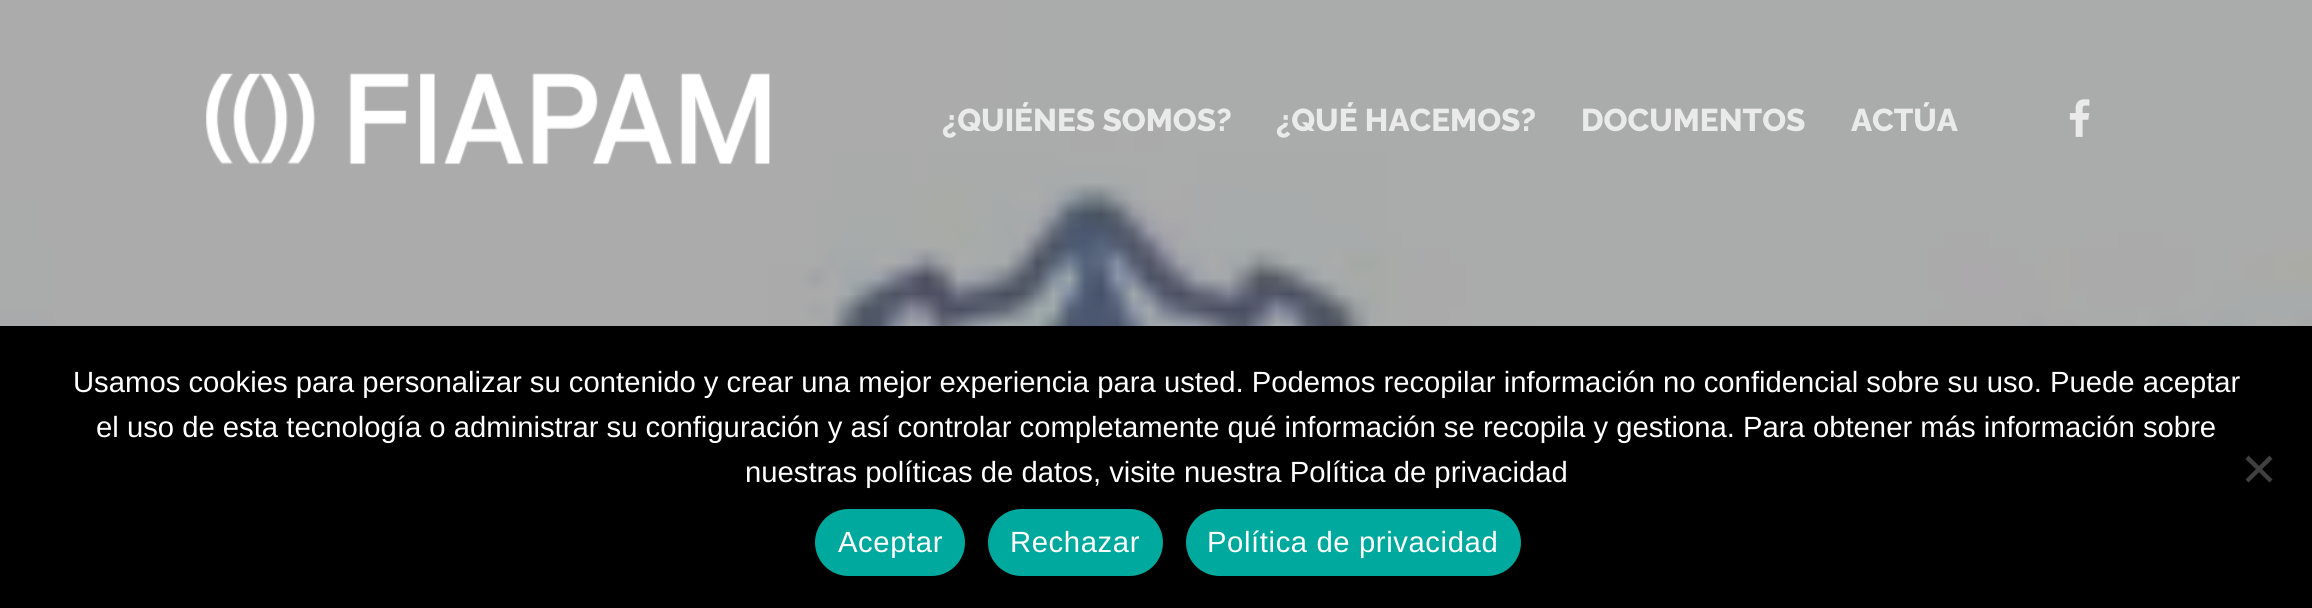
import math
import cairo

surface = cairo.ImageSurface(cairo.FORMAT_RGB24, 2312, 608)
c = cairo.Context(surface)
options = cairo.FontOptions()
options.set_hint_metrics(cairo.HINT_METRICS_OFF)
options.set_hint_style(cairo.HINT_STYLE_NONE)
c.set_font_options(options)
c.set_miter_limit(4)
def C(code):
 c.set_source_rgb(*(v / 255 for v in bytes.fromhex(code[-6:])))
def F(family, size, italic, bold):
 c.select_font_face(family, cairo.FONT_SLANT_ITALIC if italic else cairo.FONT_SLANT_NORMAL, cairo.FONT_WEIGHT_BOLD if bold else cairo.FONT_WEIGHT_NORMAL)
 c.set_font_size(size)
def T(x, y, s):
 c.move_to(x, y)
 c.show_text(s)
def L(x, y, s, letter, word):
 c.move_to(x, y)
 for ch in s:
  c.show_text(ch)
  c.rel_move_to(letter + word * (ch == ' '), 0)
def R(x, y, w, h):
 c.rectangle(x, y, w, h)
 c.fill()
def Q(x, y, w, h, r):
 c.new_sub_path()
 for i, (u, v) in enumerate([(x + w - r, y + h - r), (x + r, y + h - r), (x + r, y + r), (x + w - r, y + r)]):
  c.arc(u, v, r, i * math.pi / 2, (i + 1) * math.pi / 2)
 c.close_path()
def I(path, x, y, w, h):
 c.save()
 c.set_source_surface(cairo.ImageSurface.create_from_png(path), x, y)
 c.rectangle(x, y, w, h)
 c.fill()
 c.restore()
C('ffffff')
c.paint()
I('1.png',0,0,2312,326)
I('2.png',206,73,564,92)
F('Raleway ExtraBold',31.5,0,0)
C('eaeaea')
T(942,131,'¿QUIÉNES SOMOS?')
T(1276,131,'¿QUÉ HACEMOS?')
T(1581,131,'DOCUMENTOS')
T(1851,131,'ACTÚA')
I('3.png',2069,99,21,38)
C('000000')
R(0,326,2312,282)
F('Liberation Sans',29.25,0,0)
C('ffffff')
T(73,392,'Usamos cookies para personalizar su contenido y crear una mejor experiencia para usted. Podemos recopilar información no confidencial sobre su uso. Puede aceptar')
T(96,437,'el uso de esta tecnología o administrar su configuración y así controlar completamente qué información se recopila y gestiona. Para obtener más información sobre')
T(745,482,'nuestras políticas de datos, visite nuestra Política de privacidad')
C('404040')
c.new_path()
c.move_to(2269.5,455.5)
c.line_to(2272.5,459)
c.line_to(2248.5,482.5)
c.line_to(2245.5,479.5)
c.close_path()
c.fill()
c.new_path()
c.move_to(2245.5,459)
c.line_to(2248.5,455.5)
c.line_to(2272.5,479.5)
c.line_to(2269.5,482.5)
c.close_path()
c.fill()
C('00a99d')
Q(815,509,150,67,33.5)
c.fill()
C('ffffff')
L(838,552,'Aceptar',.6,0)
C('00a99d')
Q(988,509,175,67,33.5)
c.fill()
C('ffffff')
L(1010,552,'Rechazar',.6,0)
C('00a99d')
Q(1186,509,335,67,33.5)
c.fill()
C('ffffff')
L(1207,552,'Política de privacidad',.6,0)
surface.write_to_png('o.png')
